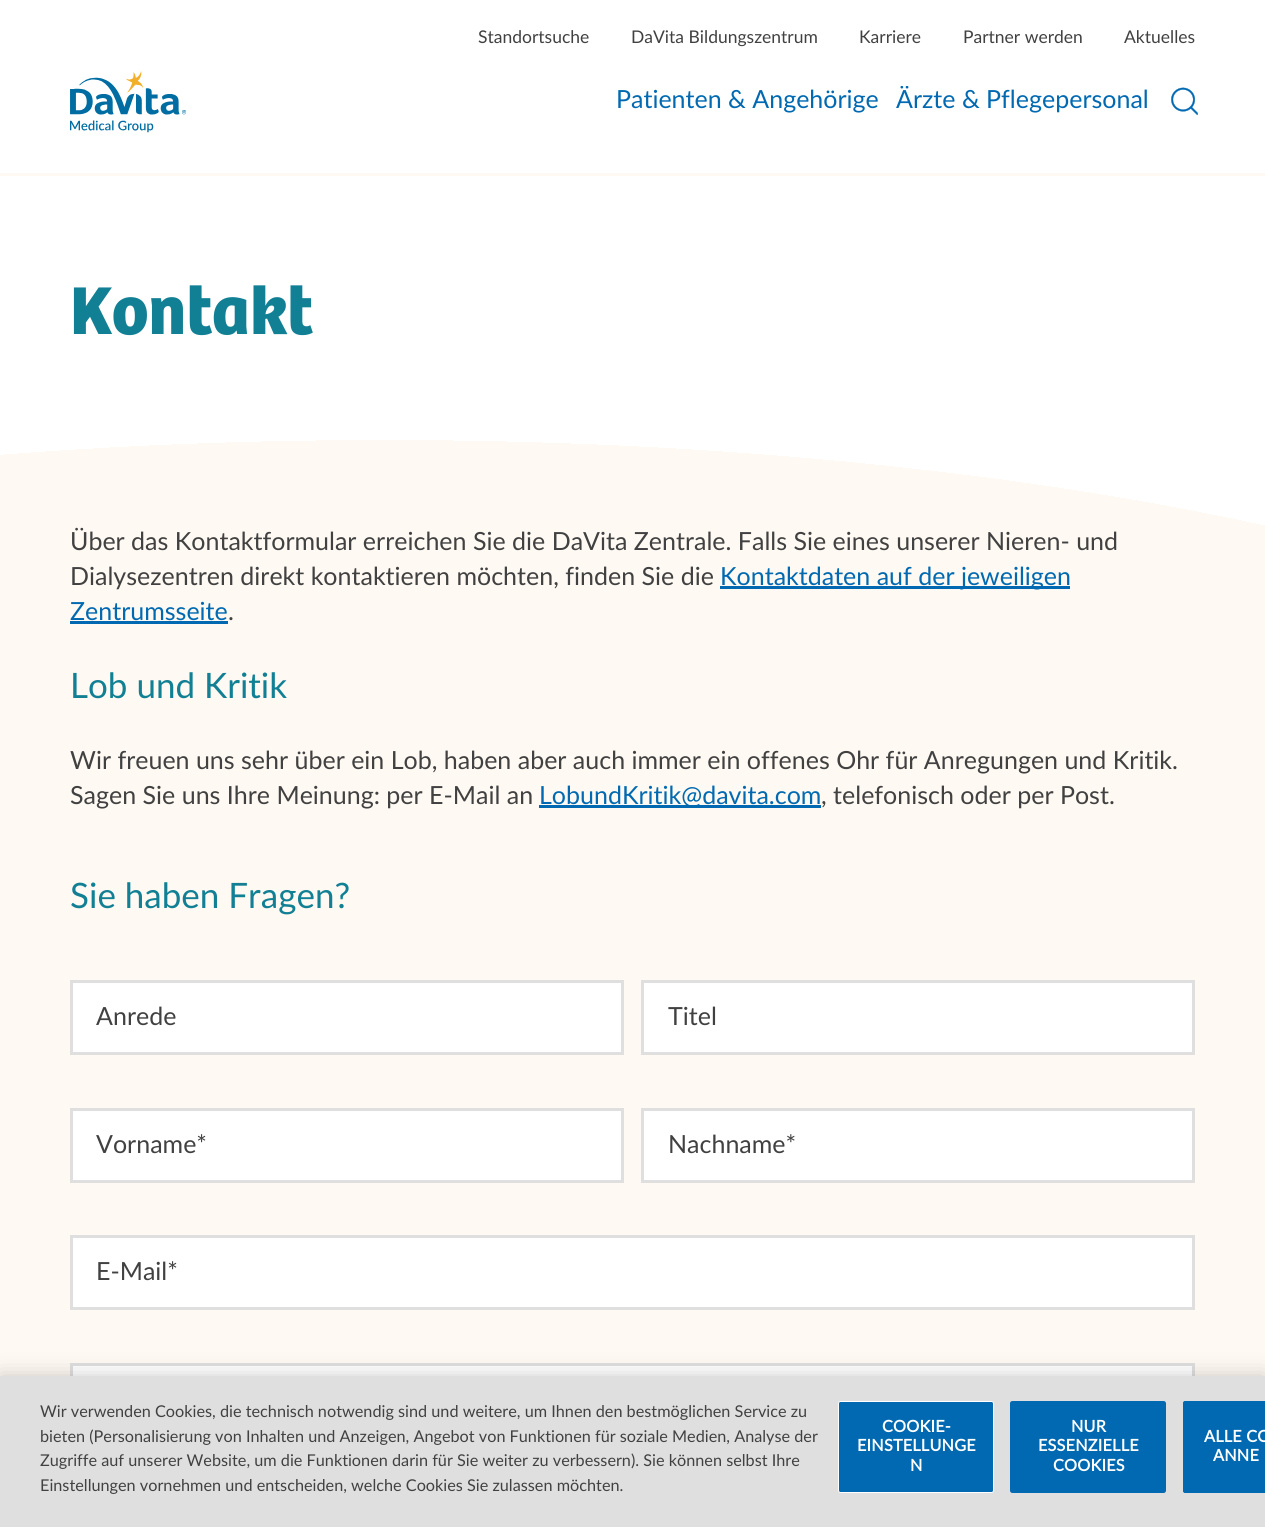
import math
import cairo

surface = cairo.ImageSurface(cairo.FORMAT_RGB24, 1265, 1527)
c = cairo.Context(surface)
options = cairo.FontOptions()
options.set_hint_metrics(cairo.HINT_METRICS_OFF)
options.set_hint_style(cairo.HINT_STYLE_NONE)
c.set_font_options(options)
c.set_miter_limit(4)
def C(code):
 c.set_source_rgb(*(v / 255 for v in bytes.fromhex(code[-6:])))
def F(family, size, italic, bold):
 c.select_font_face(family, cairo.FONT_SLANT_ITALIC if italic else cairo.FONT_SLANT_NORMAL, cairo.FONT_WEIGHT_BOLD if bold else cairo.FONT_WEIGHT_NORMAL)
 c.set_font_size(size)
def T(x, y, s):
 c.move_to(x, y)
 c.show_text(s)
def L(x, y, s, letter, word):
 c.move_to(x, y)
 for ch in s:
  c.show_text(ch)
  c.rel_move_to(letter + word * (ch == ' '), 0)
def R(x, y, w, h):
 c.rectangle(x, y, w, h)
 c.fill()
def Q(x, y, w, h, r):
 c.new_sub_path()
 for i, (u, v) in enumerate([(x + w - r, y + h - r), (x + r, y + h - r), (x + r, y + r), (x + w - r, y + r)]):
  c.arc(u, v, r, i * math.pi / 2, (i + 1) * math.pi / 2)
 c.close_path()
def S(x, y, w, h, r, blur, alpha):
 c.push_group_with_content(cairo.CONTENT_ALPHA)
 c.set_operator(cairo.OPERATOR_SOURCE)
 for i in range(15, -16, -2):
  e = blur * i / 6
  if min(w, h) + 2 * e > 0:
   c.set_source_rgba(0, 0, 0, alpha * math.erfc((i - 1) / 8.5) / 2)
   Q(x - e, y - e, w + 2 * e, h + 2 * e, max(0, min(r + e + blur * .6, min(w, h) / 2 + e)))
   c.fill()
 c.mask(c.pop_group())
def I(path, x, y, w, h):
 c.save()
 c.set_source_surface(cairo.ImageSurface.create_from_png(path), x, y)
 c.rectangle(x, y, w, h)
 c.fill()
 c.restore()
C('fef9f2')
c.paint()
C('ffffff')
R(0,0,1265,173)
F('Lato',17.5,0,0)
C('414141')
T(478,43,'Standortsuche')
T(631,43,'DaVita Bildungszentrum')
T(859,43,'Karriere')
T(963,43,'Partner werden')
T(1124,43,'Aktuelles')
I('1.png',70,71,116,62)
F('Lato',25,0,0)
C('0069b1')
T(616,108,'Patienten & Angehörige')
c.save()
c.rectangle(186,86,972,30)
c.clip()
T(896,108,'Ärzte & Pflegepersonal')
c.restore()
I('2.png',1171,87,27,29)
C('ffffff')
R(0,176,1265,244)
F('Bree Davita',70,0,1)
C('128094')
T(70,334,'Kontakt')
gradient = cairo.RadialGradient(0,0,0,0,0,1)
gradient.set_matrix(cairo.Matrix(1 / 2910, 0, 0, 1 / 800, -1 * 379 / 2910, -1 * 840 / 800))
gradient.add_color_stop_rgba(0,0.996,0.976,0.949,1)
gradient.add_color_stop_rgba(.5,0.996,0.976,0.949,1)
gradient.add_color_stop_rgba(.5,1,1,1,1)
gradient.add_color_stop_rgba(1,1,1,1,1)
c.set_source(gradient)
R(0,420,1265,105)
F('Lato',25,0,0)
C('414141')
T(70,550,'Über das Kontaktformular erreichen Sie die DaVita Zentrale. Falls Sie eines unserer Nieren- und')
T(70,585,'Dialysezentren direkt kontaktieren möchten, finden Sie die')
C('0069b1')
R(720,586,350,3)
T(720,585,'Kontaktdaten auf der jeweiligen')
T(70,620,'Zentrumsseite')
R(70,621,158,3)
C('414141')
T(228,620,'.')
F('Lato',35,0,0)
C('128094')
T(70,698,'Lob und Kritik')
F('Lato',25,0,0)
C('414141')
T(70,769,'Wir freuen uns sehr über ein Lob, haben aber auch immer ein offenes Ohr für Anregungen und Kritik.')
T(70,804,'Sagen Sie uns Ihre Meinung: per E-Mail an')
C('0069b1')
R(539,805,282,3)
T(539,804,'LobundKritik@davita.com')
C('414141')
T(821,804,', telefonisch oder per Post.')
F('Lato',35,0,0)
C('128094')
T(70,908,'Sie haben Fragen?')
C('ffffff')
c.rectangle(71.5,981.5,551,72)
c.fill_preserve()
C('dfdfdf')
c.set_line_width(3)
c.stroke()
F('Lato',25,0,0)
C('414141')
T(96,1025,'Anrede')
C('ffffff')
c.rectangle(642.5,981.5,551,72)
c.fill_preserve()
C('dfdfdf')
c.stroke()
C('414141')
T(668,1025,'Titel')
C('ffffff')
c.rectangle(71.5,1109.5,551,72)
c.fill_preserve()
C('dfdfdf')
c.stroke()
C('414141')
T(96,1153,'Vorname*')
C('ffffff')
c.rectangle(642.5,1109.5,551,72)
c.fill_preserve()
C('dfdfdf')
c.stroke()
C('414141')
T(668,1153,'Nachname*')
C('ffffff')
c.rectangle(71.5,1236.5,1122,72)
c.fill_preserve()
C('dfdfdf')
c.stroke()
C('414141')
T(96,1280,'E-Mail*')
C('ffffff')
R(73,1366,1119,10)
c.rectangle(71.5,1364.5,1122,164)
C('dfdfdf')
c.stroke()
C('000000')
S(0,1376,1265,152,0,11,.2)
C('dfdfdf')
R(0,1376,1265,151)
F('Lato',16.25,0,0)
C('414141')
T(40,1417,'Wir verwenden Cookies, die technisch notwendig sind und weitere, um Ihnen den bestmöglichen Service zu')
T(40,1442,'bieten (Personalisierung von Inhalten und Anzeigen, Angebot von Funktionen für soziale Medien, Analyse der')
T(40,1466,'Zugriffe auf unserer Website, um die Funktionen darin für Sie weiter zu verbessern). Sie können selbst Ihre')
T(40,1491,'Einstellungen vornehmen und entscheiden, welche Cookies Sie zulassen möchten.')
C('0069b1')
Q(838.5,1401.5,155,91,2)
c.fill_preserve()
C('ffffff')
c.set_line_width(1)
c.stroke()
F('Lato',16.25,0,1)
L(882,1432,'COOKIE-',.2,0)
L(857,1451,'EINSTELLUNGE',.2,0)
L(910,1471,'N',.2,0)
C('0069b1')
Q(1010.5,1401.5,155,91,2)
c.fill_preserve()
c.stroke()
C('ffffff')
L(1071,1432,'NUR',.2,0)
L(1038,1451,'ESSENZIELLE',.2,0)
L(1053,1471,'COOKIES',.2,0)
C('0069b1')
c.new_path()
c.move_to(1185.5,1401)
c.line_to(1265,1401)
c.line_to(1265,1493)
c.line_to(1185.5,1493)
c.curve_to(1184,1493,1183,1492,1183,1490.5)
c.line_to(1183,1403.5)
c.curve_to(1183,1402,1184,1401,1185.5,1401)
c.close_path()
c.fill()
Q(1183.5,1401.5,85,91,2)
c.stroke()
C('ffffff')
L(1204,1442,'ALLE CO',.2,0)
L(1213,1461,'ANNE',.2,0)
surface.write_to_png('o.png')
